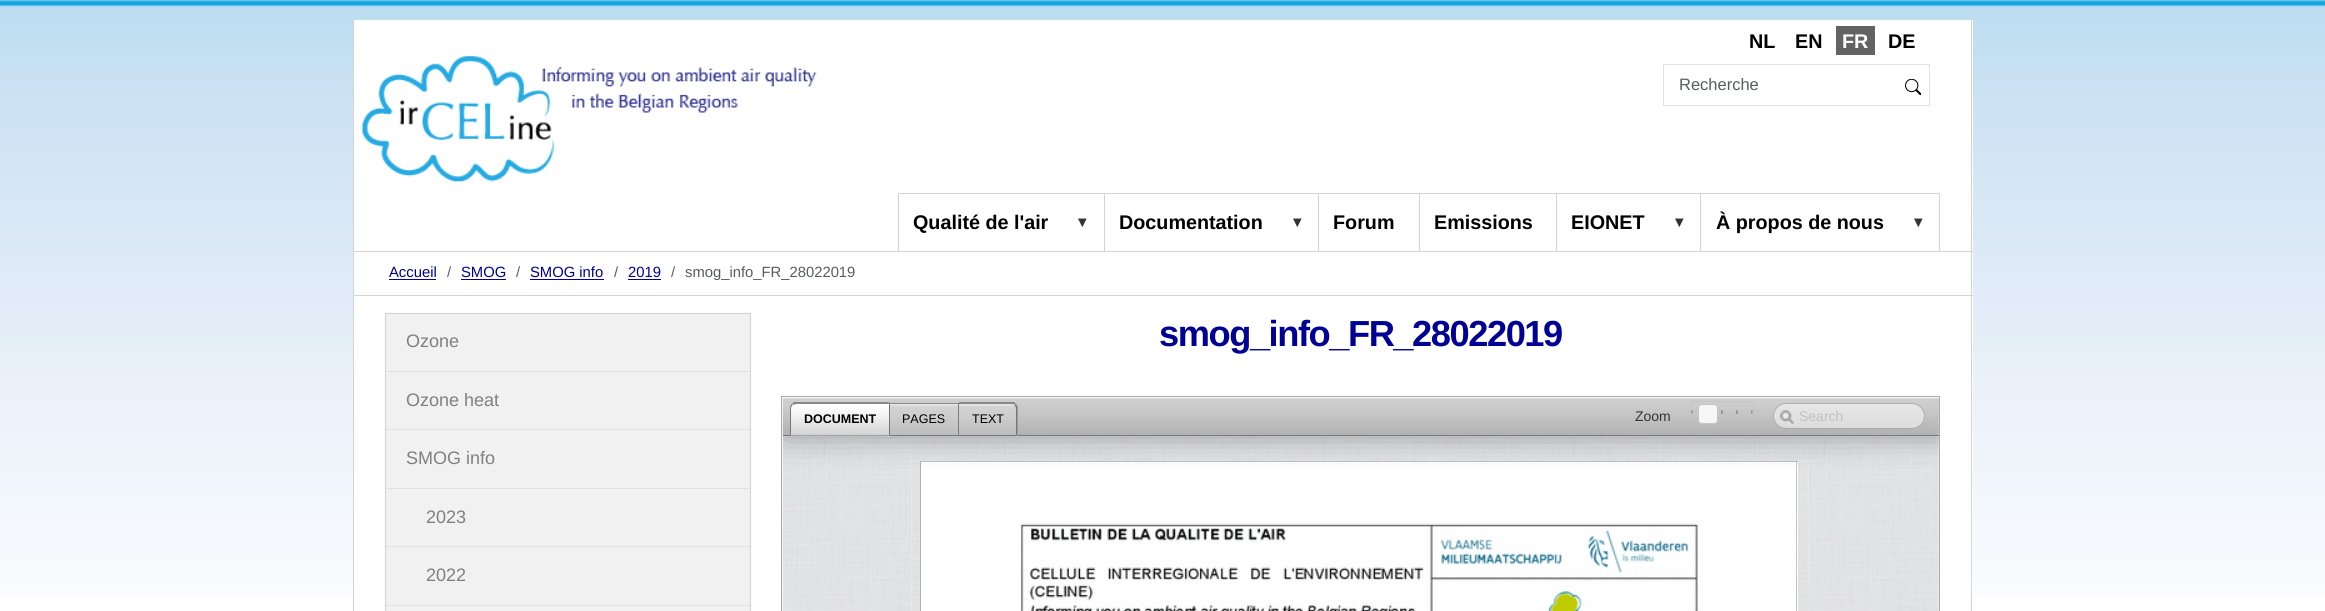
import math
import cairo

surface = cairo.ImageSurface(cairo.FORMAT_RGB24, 2325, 611)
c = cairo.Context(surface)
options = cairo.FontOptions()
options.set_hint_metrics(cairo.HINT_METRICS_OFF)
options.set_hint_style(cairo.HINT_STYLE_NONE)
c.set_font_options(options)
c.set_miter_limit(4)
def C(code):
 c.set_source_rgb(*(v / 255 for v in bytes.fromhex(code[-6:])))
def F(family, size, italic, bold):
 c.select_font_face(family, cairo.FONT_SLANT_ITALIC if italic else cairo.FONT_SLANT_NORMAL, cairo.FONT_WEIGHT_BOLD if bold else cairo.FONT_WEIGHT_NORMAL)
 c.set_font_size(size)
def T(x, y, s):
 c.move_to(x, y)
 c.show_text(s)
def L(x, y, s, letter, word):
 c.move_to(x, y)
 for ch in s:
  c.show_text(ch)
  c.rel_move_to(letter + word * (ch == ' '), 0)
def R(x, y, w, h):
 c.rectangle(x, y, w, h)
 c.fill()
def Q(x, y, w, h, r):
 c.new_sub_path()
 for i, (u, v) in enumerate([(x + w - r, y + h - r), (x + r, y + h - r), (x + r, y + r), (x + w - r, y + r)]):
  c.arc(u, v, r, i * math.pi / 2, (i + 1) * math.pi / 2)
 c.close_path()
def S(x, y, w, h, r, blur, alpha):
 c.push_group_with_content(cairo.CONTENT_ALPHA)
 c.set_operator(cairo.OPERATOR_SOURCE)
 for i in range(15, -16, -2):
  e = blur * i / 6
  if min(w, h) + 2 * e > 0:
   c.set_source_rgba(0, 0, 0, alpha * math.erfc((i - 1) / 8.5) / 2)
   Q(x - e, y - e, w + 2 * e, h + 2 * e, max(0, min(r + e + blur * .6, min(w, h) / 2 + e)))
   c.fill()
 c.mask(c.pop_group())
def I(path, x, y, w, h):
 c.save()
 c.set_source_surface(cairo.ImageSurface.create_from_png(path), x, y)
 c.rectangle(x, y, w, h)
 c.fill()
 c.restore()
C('ffffff')
c.paint()
I('1.png',0,0,2325,595)
C('ffffff')
R(354,20,1619,231)
C('d3d3d3')
R(1971,20,1,231)
R(353,20,1,231)
F('Arimo',19.75,0,1)
C('000000')
T(1749,48,'NL')
T(1795,48,'EN')
C('636363')
R(1836,26,39,29)
C('ffffff')
T(1842,48,'FR')
C('000000')
T(1888,48,'DE')
I('2.png',362,56,455,126)
c.rectangle(1663.5,64.5,266,41)
C('dee2e6')
c.set_line_width(1)
c.stroke()
F('Arimo',16.5,0,0)
C('595c5f')
T(1679,90,'Recherche')
I('3.png',1905,79,16,16)
C('d3d3d3')
R(898,193,1,58)
R(899,193,1041,1)
R(1104,193,1,58)
F('Arimo',19.75,0,1)
C('000000')
T(913,229,'Qualité de l\'air')
F('Liberation Sans',14.8,0,1)
C('333333')
T(1075,227,'▼')
C('d3d3d3')
R(1318,193,1,58)
F('Arimo',19.75,0,1)
C('000000')
T(1119,229,'Documentation')
F('Liberation Sans',14.8,0,1)
C('333333')
T(1290,227,'▼')
C('d3d3d3')
R(1419,193,1,58)
F('Arimo',19.75,0,1)
C('000000')
T(1333,229,'Forum')
C('d3d3d3')
R(1556,193,1,58)
C('000000')
T(1434,229,'Emissions')
C('d3d3d3')
R(1700,193,1,58)
C('000000')
T(1571,229,'EIONET')
F('Liberation Sans',14.8,0,1)
C('333333')
T(1672,227,'▼')
C('d3d3d3')
R(1939,193,1,58)
F('Arimo',19.75,0,1)
C('000000')
T(1716,229,'À propos de nous')
F('Liberation Sans',14.8,0,1)
C('333333')
T(1911,227,'▼')
C('ffffff')
R(354,252,1619,43)
C('d3d3d3')
R(353,251,1620,1)
R(1971,251,1,44)
R(353,251,1,44)
F('Arimo',14.8,0,0)
C('000095')
T(389,277,'Accueil')
R(389,279,47,1)
C('595c5f')
T(447,277,'/')
C('000095')
T(461,277,'SMOG')
R(461,279,45,1)
C('595c5f')
T(516,277,'/')
C('000095')
T(530,277,'SMOG info')
R(530,279,74,1)
C('595c5f')
T(614,277,'/')
C('000095')
T(628,277,'2019')
R(628,279,33,1)
C('595c5f')
T(671,277,'/')
T(685,277,'smog_info_FR_28022019')
C('ffffff')
R(354,296,1619,299)
C('d3d3d3')
R(353,295,1620,1)
R(1971,295,1,316)
R(353,295,1,316)
c.rectangle(781.5,396.5,1158,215)
C('aaaaaa')
c.stroke()
I('10.png',782,436,1,175)
C('f5f6f7')
R(783,436,1156,175)
I('11.png',782,436,1157,175)
R(911,461,898,150)
I('12.png',911,461,898,150)
C('ffffff')
R(921,462,877,149)
C('c0c0c0')
R(920,461,878,1)
C('b0b0b0')
R(1796,461,1,150)
R(920,461,1,150)
I('13.png',1020,462,777,149)
c.save()
c.rectangle(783,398,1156,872)
c.clip()
C('000000')
S(783,398,1156,38,0,15.5,.35)
c.restore()
c.rectangle(385.5,313.5,365,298)
C('d2d2d2')
c.stroke()
C('f1f1f1')
R(386,314,364,57)
F('Arimo',18,0,0)
C('808080')
T(406,347,'Ozone')
C('f1f1f1')
R(386,372,364,57)
C('dee2e6')
R(386,371,364,1)
C('808080')
T(406,406,'Ozone heat')
C('f1f1f1')
R(386,430,364,181)
C('dee2e6')
R(386,429,364,1)
C('808080')
T(406,464,'SMOG info')
C('dee2e6')
R(386,488,364,1)
C('808080')
T(426,523,'2023')
C('dee2e6')
R(386,546,364,1)
C('808080')
T(426,581,'2022')
C('dee2e6')
R(386,605,364,1)
F('Arimo',36.25,0,1)
C('000095')
L(1159,346,'smog_info_FR_28022019',-1.45,0)
C('777777')
R(783,435,1156,1)
I('4.png',782,397,1157,38)
C('bfbfbf')
c.new_path()
c.move_to(796,403)
c.line_to(890,403)
c.line_to(890,436)
c.line_to(790,436)
c.line_to(790,409)
c.curve_to(790,405.5,792.5,403,796,403)
c.close_path()
c.fill()
I('5.png',790,403,100,33)
C('888888')
c.new_path()
c.move_to(796,404)
c.line_to(793,405)
c.line_to(792,404)
c.line_to(794,402)
c.line_to(890,402)
c.line_to(888,404)
c.close_path()
c.fill()
C('777777')
c.new_path()
c.move_to(890,402.5)
c.line_to(888.5,404)
c.line_to(889,404)
c.line_to(889,435)
c.line_to(890,436)
c.close_path()
c.fill()
C('a0a0a0')
c.new_path()
c.move_to(890,436)
c.line_to(790,436)
c.line_to(791,435)
c.line_to(889,435)
c.close_path()
c.fill()
C('777777')
c.new_path()
c.move_to(790,409)
c.line_to(790,436)
c.line_to(791,435)
c.line_to(791,409)
c.curve_to(791,407.5,791.5,406,792.5,405)
c.line_to(791.5,404)
c.curve_to(790.5,405.5,790,407,790,409)
c.close_path()
c.fill()
F('Liberation Sans',12.5,0,1)
C('000000')
T(804,423,'DOCUMENT')
I('6.png',890,404,69,33)
C('888888')
R(890,403,69,1)
C('777777')
R(958,403,1,33)
R(890,435,69,1)
F('Liberation Sans',12.5,0,0)
C('000000')
T(902,423,'PAGES')
C('bfbfbf')
c.new_path()
c.move_to(959,403)
c.line_to(1012,403)
c.curve_to(1015.5,403,1018,405.5,1018,409)
c.line_to(1018,436)
c.line_to(959,436)
c.close_path()
c.fill()
I('7.png',958,403,60,33)
C('888888')
c.new_path()
c.move_to(959,404)
c.line_to(959,402)
c.line_to(1014,402)
c.line_to(1016,404)
c.line_to(1015,405)
c.curve_to(1014,404,1012,404,1011,404)
c.close_path()
c.fill()
C('777777')
c.new_path()
c.move_to(1016,435)
c.line_to(1016,409)
c.curve_to(1016,407.5,1015.5,406,1014.5,405.5)
c.line_to(1016,404)
c.line_to(1017.5,406.5)
c.line_to(1017.5,436)
c.close_path()
c.fill()
c.new_path()
c.move_to(1017,436)
c.line_to(1016,435)
c.line_to(959,435)
c.line_to(959,436)
c.close_path()
c.fill()
C('000000')
T(972,423,'TEXT')
F('Liberation Sans',14,0,0)
C('333333')
T(1635,421,'Zoom')
I('8.png',1691,401,62,14)
Q(1690.5,401.5,63,13,3.5)
C('c5c5c5')
c.stroke()
C('f6f6f6')
Q(1698.5,404.5,19,19,3.5)
c.fill_preserve()
C('c5c5c5')
c.stroke()
c.set_source_rgba(1,1,1,0.5)
Q(1773,403,152,26,13)
c.fill()
I('9.png',1780,410,15,15)
Q(1773.5,403.5,151,25,12.5)
c.set_source_rgba(0.467,0.467,0.467,0.5)
c.stroke()
C('c0c0c0')
T(1799,421,'Search')
surface.write_to_png('o.png')
